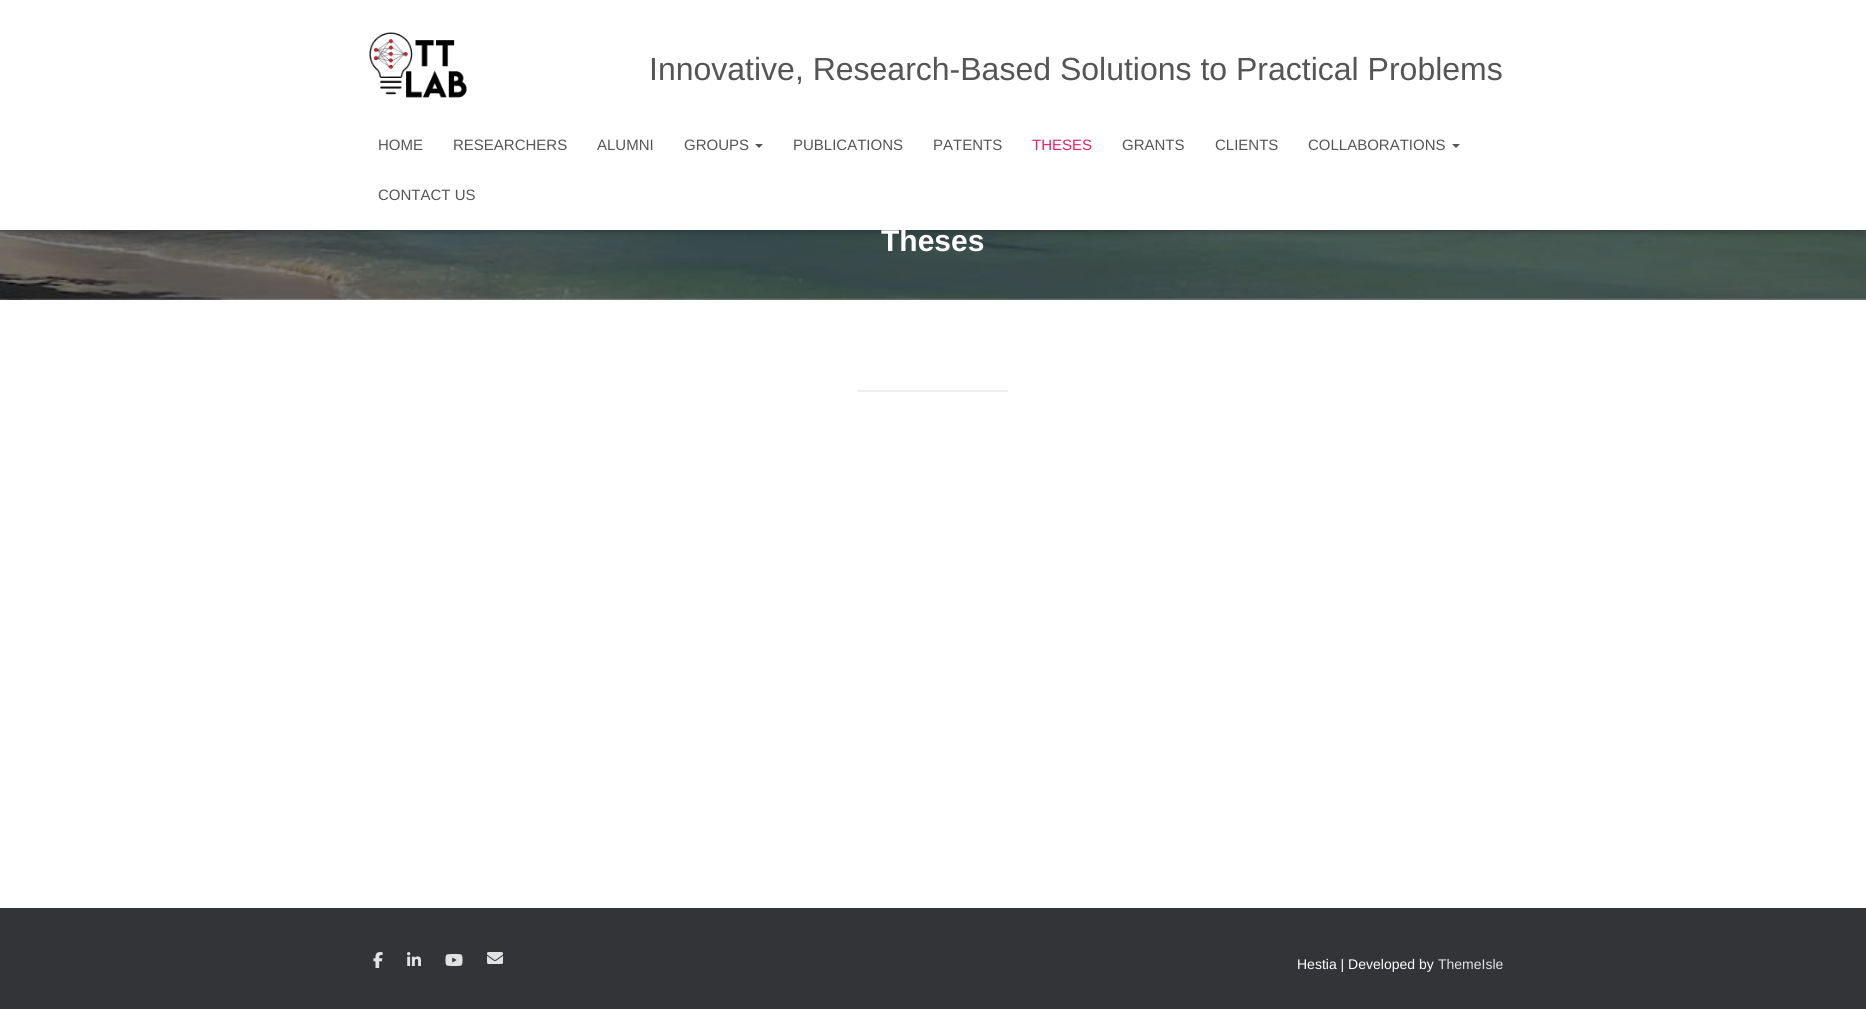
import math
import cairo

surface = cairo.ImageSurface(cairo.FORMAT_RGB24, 1866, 1009)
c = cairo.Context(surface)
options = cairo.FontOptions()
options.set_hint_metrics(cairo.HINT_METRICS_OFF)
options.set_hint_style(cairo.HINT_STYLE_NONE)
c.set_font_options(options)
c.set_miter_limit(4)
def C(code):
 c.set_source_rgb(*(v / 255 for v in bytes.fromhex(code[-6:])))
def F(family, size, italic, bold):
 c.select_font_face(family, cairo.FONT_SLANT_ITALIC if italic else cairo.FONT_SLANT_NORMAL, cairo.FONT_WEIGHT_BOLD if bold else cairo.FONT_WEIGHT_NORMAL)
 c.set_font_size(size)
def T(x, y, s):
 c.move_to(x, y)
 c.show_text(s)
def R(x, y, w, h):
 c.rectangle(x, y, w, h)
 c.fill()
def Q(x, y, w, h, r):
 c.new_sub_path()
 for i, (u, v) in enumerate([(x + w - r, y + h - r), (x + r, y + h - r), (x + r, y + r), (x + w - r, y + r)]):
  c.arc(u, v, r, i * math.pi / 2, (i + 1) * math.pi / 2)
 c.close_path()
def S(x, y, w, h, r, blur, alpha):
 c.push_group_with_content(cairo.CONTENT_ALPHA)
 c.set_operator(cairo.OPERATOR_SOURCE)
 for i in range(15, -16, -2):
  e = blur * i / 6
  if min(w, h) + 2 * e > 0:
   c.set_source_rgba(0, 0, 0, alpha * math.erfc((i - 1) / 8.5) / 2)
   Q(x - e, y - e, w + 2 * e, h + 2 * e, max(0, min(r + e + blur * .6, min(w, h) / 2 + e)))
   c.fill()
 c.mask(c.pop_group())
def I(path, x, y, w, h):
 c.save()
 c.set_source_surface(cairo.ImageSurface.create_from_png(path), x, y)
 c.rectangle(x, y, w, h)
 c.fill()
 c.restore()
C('ffffff')
c.paint()
I('2.png',0,230,1866,70)
C('000000')
S(2,6,1862,226,0,2.5,.1)
S(0,1,1866,230,0,5,.12)
S(6,7,1854,218,0,5,.42)
C('ffffff')
R(0,0,1866,230)
I('1.png',369,32,98,66)
F('Liberation Sans',32,0,0)
C('555555')
T(649,80,'Innovative, Research-Based Solutions to Practical Problems')
F('Liberation Sans',15,0,0)
T(378,150,'HOME')
T(453,150,'RESEARCHERS')
T(597,150,'ALUMNI')
T(684,150,'GROUPS')
c.new_path()
c.move_to(755,144)
c.line_to(763,144)
c.line_to(759,148)
c.close_path()
c.fill()
T(793,150,'PUBLICATIONS')
T(933,150,'PATENTS')
C('e91e63')
T(1032,150,'THESES')
C('555555')
T(1122,150,'GRANTS')
T(1215,150,'CLIENTS')
T(1308,150,'COLLABORATIONS')
c.new_path()
c.move_to(1452,144)
c.line_to(1460,144)
c.line_to(1456,148)
c.close_path()
c.fill()
T(378,200,'CONTACT US')
F('Liberation Sans',30,0,1)
C('ffffff')
T(881,251,'Theses')
C('eeeeee')
R(858,390,150,2)
C('323437')
R(0,908,1866,101)
I('3.png',373,952,10,16)
I('4.png',407,952,14,14)
I('5.png',445,954,18,12)
I('6.png',487,952,16,12)
F('Liberation Sans',14,0,0)
C('ffffff')
T(1297,969,'Hestia | Developed by')
C('e2e3e3')
T(1438,969,'ThemeIsle')
surface.write_to_png('o.png')
